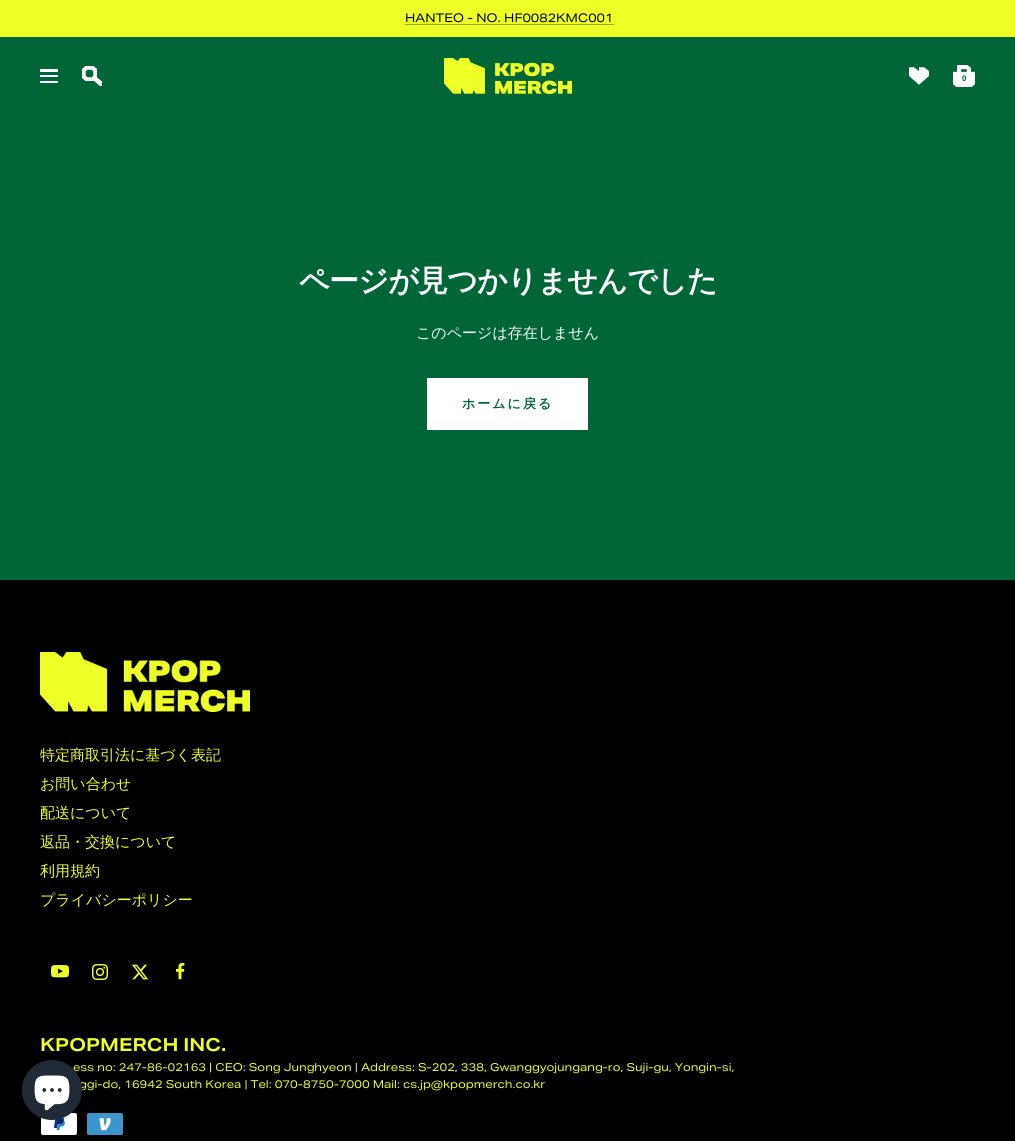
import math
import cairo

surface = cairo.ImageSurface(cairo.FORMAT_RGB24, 1015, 1141)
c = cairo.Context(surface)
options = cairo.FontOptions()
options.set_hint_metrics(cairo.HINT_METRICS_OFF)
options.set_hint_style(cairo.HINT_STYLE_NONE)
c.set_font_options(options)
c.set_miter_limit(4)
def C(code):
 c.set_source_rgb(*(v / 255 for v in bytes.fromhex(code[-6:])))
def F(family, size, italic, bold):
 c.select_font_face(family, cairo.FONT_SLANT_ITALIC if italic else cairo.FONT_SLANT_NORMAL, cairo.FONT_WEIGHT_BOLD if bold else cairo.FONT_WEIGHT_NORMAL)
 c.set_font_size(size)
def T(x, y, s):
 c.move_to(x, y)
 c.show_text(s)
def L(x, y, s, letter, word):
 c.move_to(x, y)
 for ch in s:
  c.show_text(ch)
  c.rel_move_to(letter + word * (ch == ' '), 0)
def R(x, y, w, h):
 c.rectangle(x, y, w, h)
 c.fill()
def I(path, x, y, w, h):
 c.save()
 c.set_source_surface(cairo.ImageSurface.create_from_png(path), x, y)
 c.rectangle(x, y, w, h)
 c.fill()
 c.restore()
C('006638')
c.paint()
C('eeff27')
R(0,0,1015,37)
F('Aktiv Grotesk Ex',12,0,0)
C('000000')
T(405,22,'HANTEO - NO. HF0082KMC001')
C('9ba619')
R(405,24,209,1)
C('ffffff')
R(40,69,18,3)
R(40,75,18,2)
R(40,81,18,2)
I('1.png',82,66,20,20)
I('2.png',444,58,128,36)
I('3.png',909,67,20,18)
I('4.png',953,65,22,22)
F('Liberation Sans',8,0,1)
C('006638')
T(962,81,'0')
F('WenQuanYi Zen Hei',30,0,1)
C('ffffff')
L(299,291,'ページが見つかりませんでした',-.75,0)
F('WenQuanYi Zen Hei Medium',15,0,0)
T(416,338,'このページは存在しません')
R(427,378,161,52)
F('WenQuanYi Zen Hei',13,0,1)
C('006638')
L(462,408,'ホームに戻る',2,0)
C('000000')
R(0,580,1015,561)
I('5.png',40,652,210,60)
F('WenQuanYi Zen Hei Medium',15,0,0)
C('eeff27')
T(40,760,'特定商取引法に基づく表記')
T(40,789,'お問い合わせ')
T(40,818,'配送について')
T(40,847,'返品・交換について')
T(40,876,'利用規約')
T(40,905,'プライバシーポリシー')
I('6.png',51,965,18,13)
I('7.png',92,964,16,16)
I('8.png',132,964,16,16)
I('9.png',176,963,9,17)
F('Aktiv Grotesk Ex',18,0,1)
T(40,1051,'KPOPMERCH INC.')
F('Aktiv Grotesk Ex',11,0,0)
T(73,1071,'ess no: 247-86-02163 | CEO: Song Junghyeon | Address: S-202, 338, Gwanggyojungang-ro, Suji-gu, Yongin-si,')
T(79,1088,'ggi-do, 16942 South Korea | Tel: 070-8750-7000 Mail: cs.jp@kpopmerch.co.kr')
I('10.png',41,1113,36,22)
I('11.png',87,1113,36,22)
C('202a36')
c.arc(52,1090,30,0,2 * math.pi)
c.fill()
I('12.png',34,1075,36,36)
surface.write_to_png('o.png')
